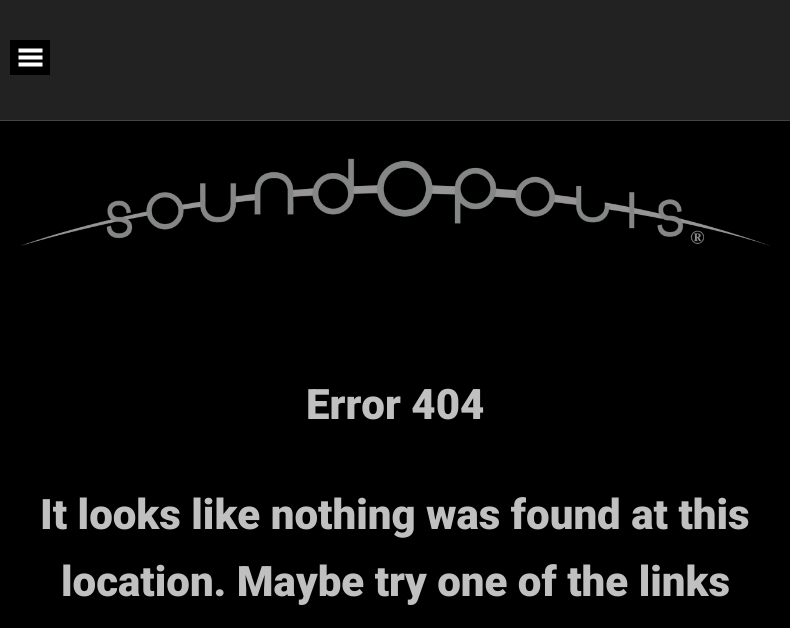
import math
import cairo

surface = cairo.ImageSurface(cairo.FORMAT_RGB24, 790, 628)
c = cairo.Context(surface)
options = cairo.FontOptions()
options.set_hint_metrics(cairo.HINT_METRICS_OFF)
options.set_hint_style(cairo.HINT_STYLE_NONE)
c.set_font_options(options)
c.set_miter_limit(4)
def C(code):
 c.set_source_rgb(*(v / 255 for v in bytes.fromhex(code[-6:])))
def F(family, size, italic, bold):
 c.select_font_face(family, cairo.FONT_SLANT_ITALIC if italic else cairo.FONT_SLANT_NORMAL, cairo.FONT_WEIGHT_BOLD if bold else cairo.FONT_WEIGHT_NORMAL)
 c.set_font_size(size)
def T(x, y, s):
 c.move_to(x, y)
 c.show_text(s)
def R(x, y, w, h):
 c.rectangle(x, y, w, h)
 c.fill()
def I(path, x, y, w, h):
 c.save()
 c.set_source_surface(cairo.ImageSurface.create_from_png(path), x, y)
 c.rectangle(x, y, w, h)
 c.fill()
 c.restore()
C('000000')
c.paint()
C('222222')
R(0,0,790,120)
C('444444')
R(0,120,790,1)
I('1.png',10,40,40,35)
I('2.png',21,158,749,88)
F('Roboto Black',42,0,0)
C('c0c0c0')
T(306,419,'Error 404')
T(40,529,'It looks like nothing was found at this')
T(61,596,'location. Maybe try one of the links')
surface.write_to_png('o.png')
